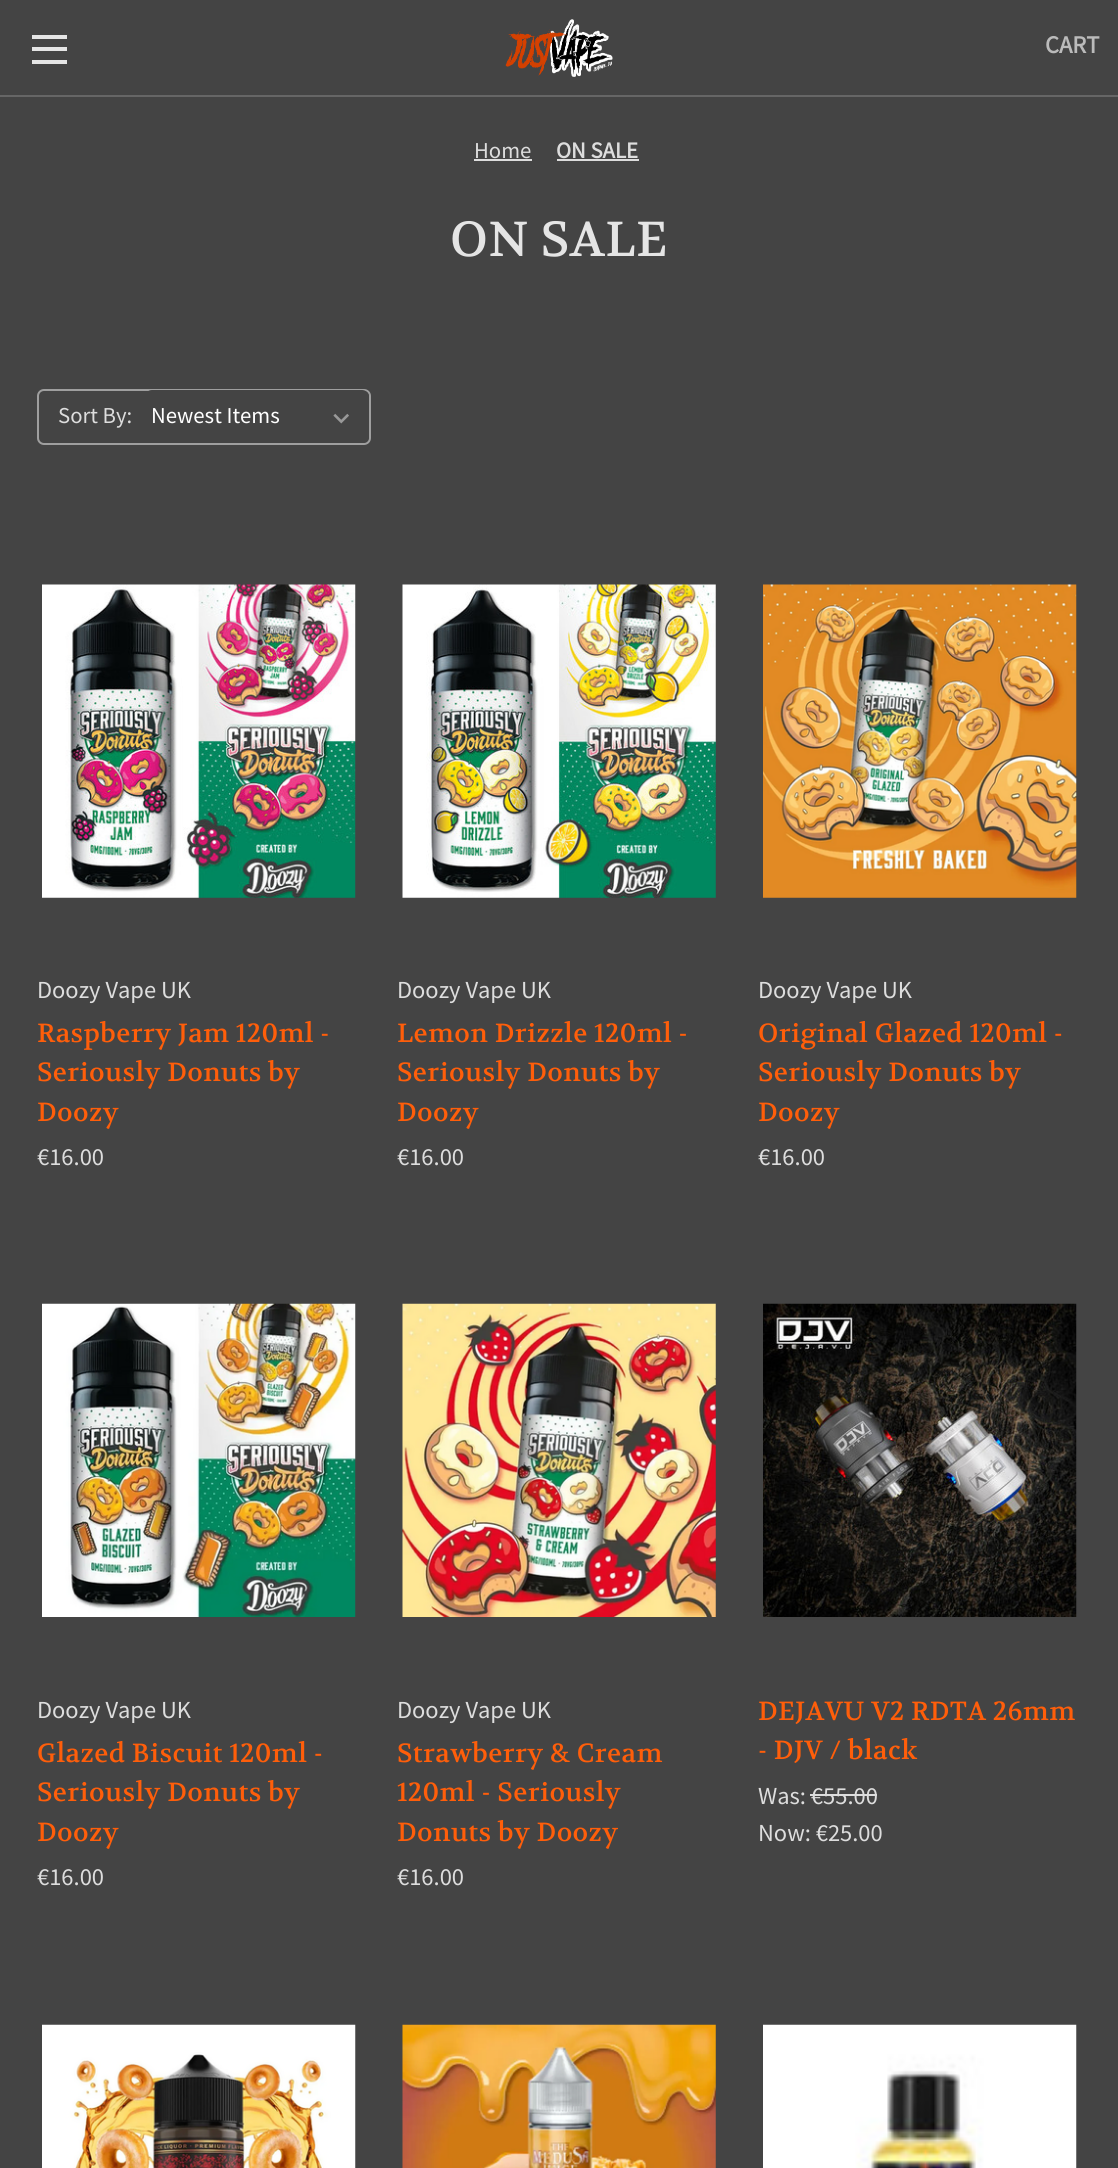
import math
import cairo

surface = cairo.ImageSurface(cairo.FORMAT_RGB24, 1118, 2168)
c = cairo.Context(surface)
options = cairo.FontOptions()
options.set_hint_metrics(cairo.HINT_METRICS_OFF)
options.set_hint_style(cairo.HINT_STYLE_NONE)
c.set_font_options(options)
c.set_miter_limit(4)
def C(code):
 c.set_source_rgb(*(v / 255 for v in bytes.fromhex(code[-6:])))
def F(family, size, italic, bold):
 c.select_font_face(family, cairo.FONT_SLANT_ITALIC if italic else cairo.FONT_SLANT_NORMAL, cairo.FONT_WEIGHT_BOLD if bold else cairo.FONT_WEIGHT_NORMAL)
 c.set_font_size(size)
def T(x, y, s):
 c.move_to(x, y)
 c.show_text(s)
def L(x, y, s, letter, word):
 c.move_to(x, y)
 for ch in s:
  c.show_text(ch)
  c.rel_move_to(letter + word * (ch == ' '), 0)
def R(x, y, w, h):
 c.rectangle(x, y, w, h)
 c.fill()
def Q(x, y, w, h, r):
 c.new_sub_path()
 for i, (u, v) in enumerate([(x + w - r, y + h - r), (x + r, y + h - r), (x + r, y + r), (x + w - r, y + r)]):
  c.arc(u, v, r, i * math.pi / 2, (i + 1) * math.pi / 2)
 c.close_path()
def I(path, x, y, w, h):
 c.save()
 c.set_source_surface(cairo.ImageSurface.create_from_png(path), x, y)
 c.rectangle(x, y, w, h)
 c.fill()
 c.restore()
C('444444')
c.paint()
C('666666')
R(0,95,1118,2)
C('e5e5e5')
R(32,47,35,4)
R(32,35,35,4)
R(32,60,35,4)
I('1.png',505,19,108,58)
F('Source Sans Pro',24.5,0,1)
C('bbbbbb')
T(1045,53,'CART')
F('Source Sans Pro',22.75,0,0)
C('dddddd')
T(474,158,'Home')
R(474,159,58,2)
F('Source Sans Pro',22.75,0,1)
T(556,158,'ON SALE')
R(557,159,82,2)
F('Volkhov',49,0,0)
C('e5e5e5')
L(450,256,'ON SALE',.4,0)
Q(38,390,332,54,6)
C('9f9f9f')
c.stroke()
F('Source Sans Pro',22.75,0,0)
C('dddddd')
T(58,423,'Sort By:')
C('444444')
Q(145,390,224,53,7)
c.fill()
I('2.png',333,413,16,11)
C('ffffff')
T(151,423,'Newest Items')
I('3.png',42,584,314,314)
F('Source Sans Pro',24.5,0,0)
C('dddddd')
T(37,998,'Doozy Vape UK')
F('Volkhov',26.25,0,0)
C('ff5e0a')
L(37,1042,'Raspberry Jam 120ml -',.4,0)
L(37,1081,'Seriously Donuts by',.4,0)
L(37,1121,'Doozy',.4,0)
F('Source Sans Pro',24.5,0,0)
C('dddddd')
T(37,1165,'€16.00')
I('4.png',402,584,314,314)
T(397,998,'Doozy Vape UK')
F('Volkhov',26.25,0,0)
C('ff5e0a')
L(397,1042,'Lemon Drizzle 120ml -',.4,0)
L(397,1081,'Seriously Donuts by',.4,0)
L(397,1121,'Doozy',.4,0)
F('Source Sans Pro',24.5,0,0)
C('dddddd')
T(397,1165,'€16.00')
I('5.png',763,584,314,314)
T(758,998,'Doozy Vape UK')
F('Volkhov',26.25,0,0)
C('ff5e0a')
L(758,1042,'Original Glazed 120ml -',.4,0)
L(758,1081,'Seriously Donuts by',.4,0)
L(758,1121,'Doozy',.4,0)
F('Source Sans Pro',24.5,0,0)
C('dddddd')
T(758,1165,'€16.00')
I('6.png',42,1303,314,314)
T(37,1718,'Doozy Vape UK')
F('Volkhov',26.25,0,0)
C('ff5e0a')
L(37,1762,'Glazed Biscuit 120ml -',.4,0)
L(37,1801,'Seriously Donuts by',.4,0)
L(37,1841,'Doozy',.4,0)
F('Source Sans Pro',24.5,0,0)
C('dddddd')
T(37,1885,'€16.00')
I('7.png',402,1303,314,314)
T(397,1718,'Doozy Vape UK')
F('Volkhov',26.25,0,0)
C('ff5e0a')
L(397,1762,'Strawberry & Cream',.4,0)
L(397,1801,'120ml - Seriously',.4,0)
L(397,1841,'Donuts by Doozy',.4,0)
F('Source Sans Pro',24.5,0,0)
C('dddddd')
T(397,1885,'€16.00')
I('8.png',763,1303,314,314)
F('Volkhov',26.25,0,0)
C('ff5e0a')
L(758,1720,'DEJAVU V2 RDTA 26mm',.4,0)
L(758,1759,'- DJV / black',.4,0)
F('Source Sans Pro',24.5,0,0)
C('dddddd')
T(758,1804,'Was: €55.00')
R(810,1794,67,2)
T(758,1841,'Now: €25.00')
I('9.png',42,2024,314,144)
I('10.png',402,2024,314,144)
I('11.png',763,2024,314,144)
surface.write_to_png('o.png')
